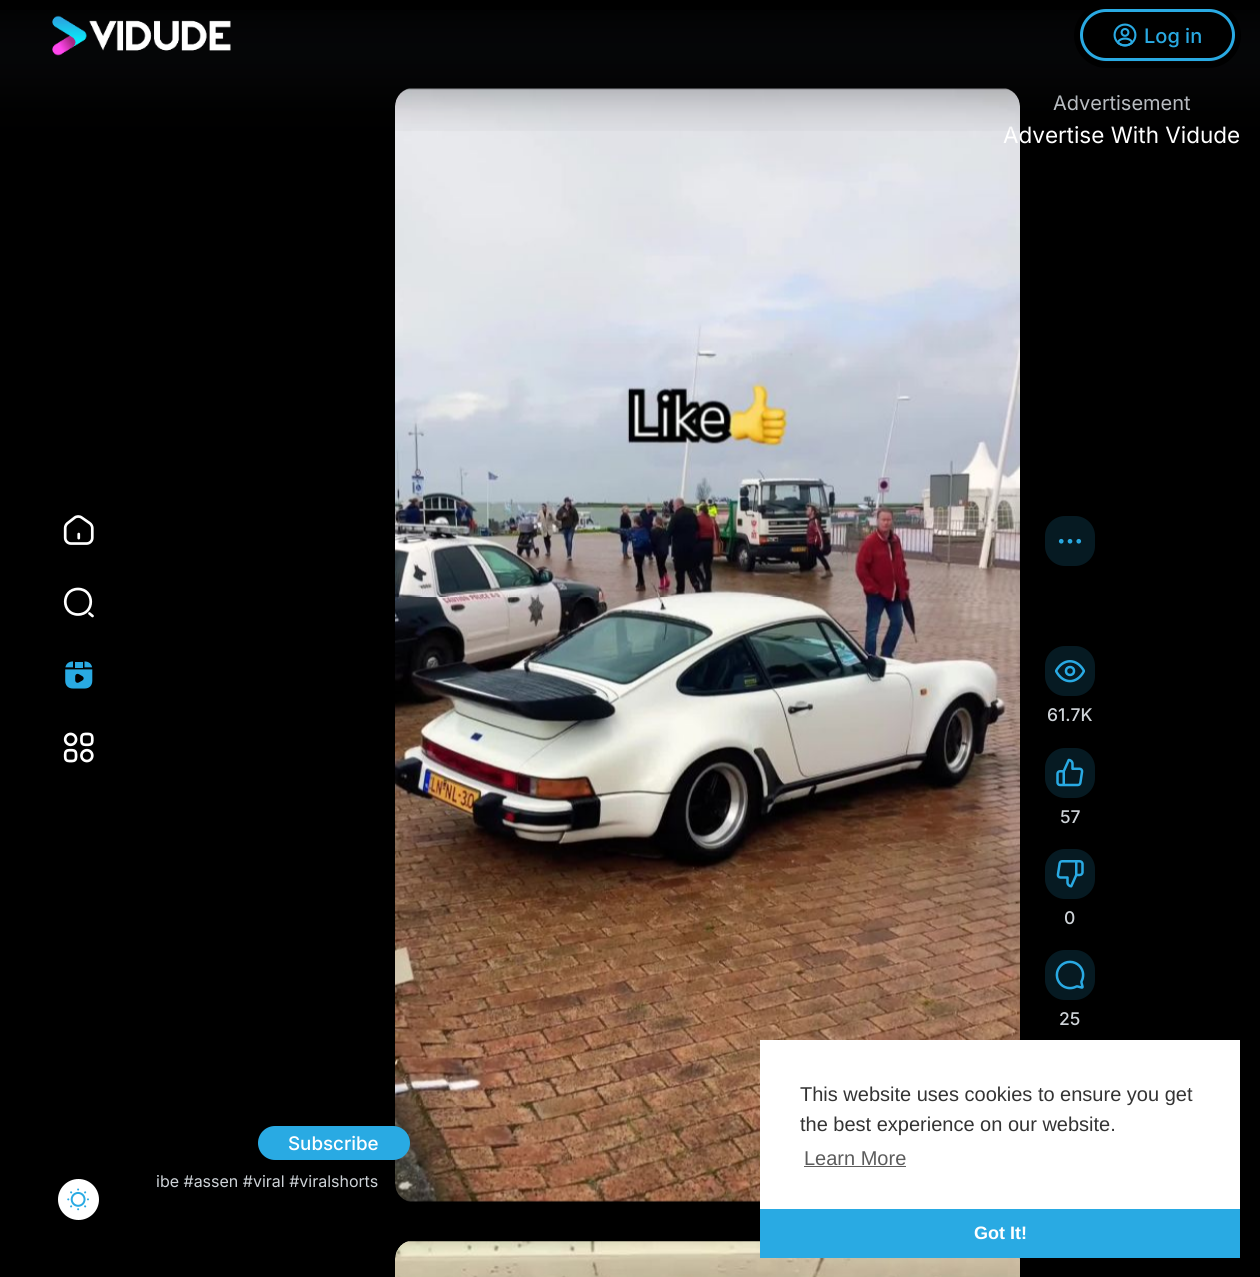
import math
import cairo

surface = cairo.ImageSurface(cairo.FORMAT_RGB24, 1260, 1277)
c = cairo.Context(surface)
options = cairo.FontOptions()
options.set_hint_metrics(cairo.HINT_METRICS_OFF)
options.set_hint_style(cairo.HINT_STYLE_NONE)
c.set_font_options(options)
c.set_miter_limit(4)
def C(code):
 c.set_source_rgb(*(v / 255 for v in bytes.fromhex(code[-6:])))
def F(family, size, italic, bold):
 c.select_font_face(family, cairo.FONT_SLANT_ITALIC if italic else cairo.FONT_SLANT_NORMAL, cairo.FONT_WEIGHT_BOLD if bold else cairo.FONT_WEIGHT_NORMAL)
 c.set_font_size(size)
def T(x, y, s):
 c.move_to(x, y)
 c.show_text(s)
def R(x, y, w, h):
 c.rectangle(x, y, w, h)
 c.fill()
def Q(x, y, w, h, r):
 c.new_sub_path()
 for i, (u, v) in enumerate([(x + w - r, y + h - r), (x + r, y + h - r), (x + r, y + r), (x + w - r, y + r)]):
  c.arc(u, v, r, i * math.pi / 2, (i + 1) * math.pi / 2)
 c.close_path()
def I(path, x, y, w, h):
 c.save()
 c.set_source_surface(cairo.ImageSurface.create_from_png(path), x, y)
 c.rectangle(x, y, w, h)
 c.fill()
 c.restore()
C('000000')
c.paint()
F('Inter',20,0,0)
C('ced3d8')
T(1053,110,'Advertisement')
I('7.png',395,88,625,1114)
F('Inter',22.5,0,0)
C('ffffff')
T(1003,143,'Advertise With Vidude')
gradient = cairo.LinearGradient(630,0,630,150)
gradient.add_color_stop_rgba(0,0,0,0,1)
gradient.add_color_stop_rgba(.5,0.059,0.063,0.078,.3)
gradient.add_color_stop_rgba(.65,0.059,0.063,0.078,.15)
gradient.add_color_stop_rgba(.75,0.059,0.063,0.078,.07)
gradient.add_color_stop_rgba(.82,0.059,0.063,0.078,.04)
gradient.add_color_stop_rgba(.88,0.059,0.063,0.078,.02)
gradient.add_color_stop_rgba(1,0.059,0.063,0.078,0)
c.set_source(gradient)
R(0,10,1260,121)
I('1.png',52,15,179,41)
Q(1077,6,161,59,29.5)
C('000000')
c.set_line_width(6)
c.stroke()
Q(1081.5,10.5,152,49,24.5)
c.fill_preserve()
C('29aae3')
c.set_line_width(3)
c.stroke()
I('2.png',1113,23,24,24)
F('Inter Medium',20,0,0)
T(1144,43,'Log in')
I('3.png',63,515,31,30)
c.new_path()
c.move_to(78,614.5)
c.curve_to(95,614.5,95,589,78,589)
c.curve_to(61,589,61,614.5,78,614.5)
c.close_path()
c.move_to(92.5,616)
c.line_to(89.5,613.5)
C('ffffff')
c.set_line_width(2.7)
c.set_line_cap(cairo.LINE_CAP_ROUND)
c.set_line_join(cairo.LINE_JOIN_ROUND)
c.stroke()
I('4.png',65,661,28,28)
I('5.png',63,732,31,31)
c.arc(78.5,1199.5,20.5,0,2 * math.pi)
c.fill()
I('6.png',67,1188,22,23)
C('061a22')
Q(1045,516,50,50,20)
c.fill()
I('8.png',1058,538,24,6)
Q(1045,646,50,50,20)
c.fill()
c.save()
c.rectangle(1055,656,30,30)
c.clip()
c.new_path()
c.move_to(1056,671)
c.curve_to(1063,658,1077,658,1084,671)
c.curve_to(1077,684.5,1063,684.5,1056,671)
c.close_path()
C('29aae3')
c.set_line_width(2.5)
c.stroke()
c.restore()
c.arc(1070,671,4,0,2 * math.pi)
C('29aae3')
c.set_line_width(2.5)
c.set_line_cap(cairo.LINE_CAP_BUTT)
c.set_line_join(cairo.LINE_JOIN_MITER)
c.stroke()
F('Inter Medium',17.5,0,0)
C('ced3d8')
T(1047,721,'61.7K')
C('061a22')
Q(1045,748,50,50,20)
c.fill()
I('9.png',1056,758,28,29)
C('ced3d8')
T(1060,823,'57')
C('061a22')
Q(1045,849,50,50,20)
c.fill()
I('10.png',1056,860,28,28)
C('ced3d8')
T(1064,924,'0')
C('061a22')
Q(1045,950,50,50,20)
c.fill()
I('11.png',1055,960,30,30)
C('ced3d8')
T(1059,1025,'25')
C('29aae3')
Q(258,1126,152,34,17)
c.fill()
F('Inter Medium',18.75,0,0)
C('ffffff')
T(288,1150,'Subscribe')
F('Inter',16,0,0)
C('ced3d8')
T(156,1187,'ibe #assen #viral #viralshorts')
I('12.png',395,1241,625,36)
C('ffffff')
R(760,1040,480,169)
F('Liberation Sans',20,0,0)
C('333333')
T(800,1101,'This website uses cookies to ensure you get')
T(800,1131,'the best experience on our website.')
C('5c5c5c')
T(804,1165,'Learn More')
R(804,1166,102,1)
C('29aae3')
R(760,1209,480,49)
F('Liberation Sans',18,0,1)
C('ffffff')
T(974,1239,'Got It!')
surface.write_to_png('o.png')
